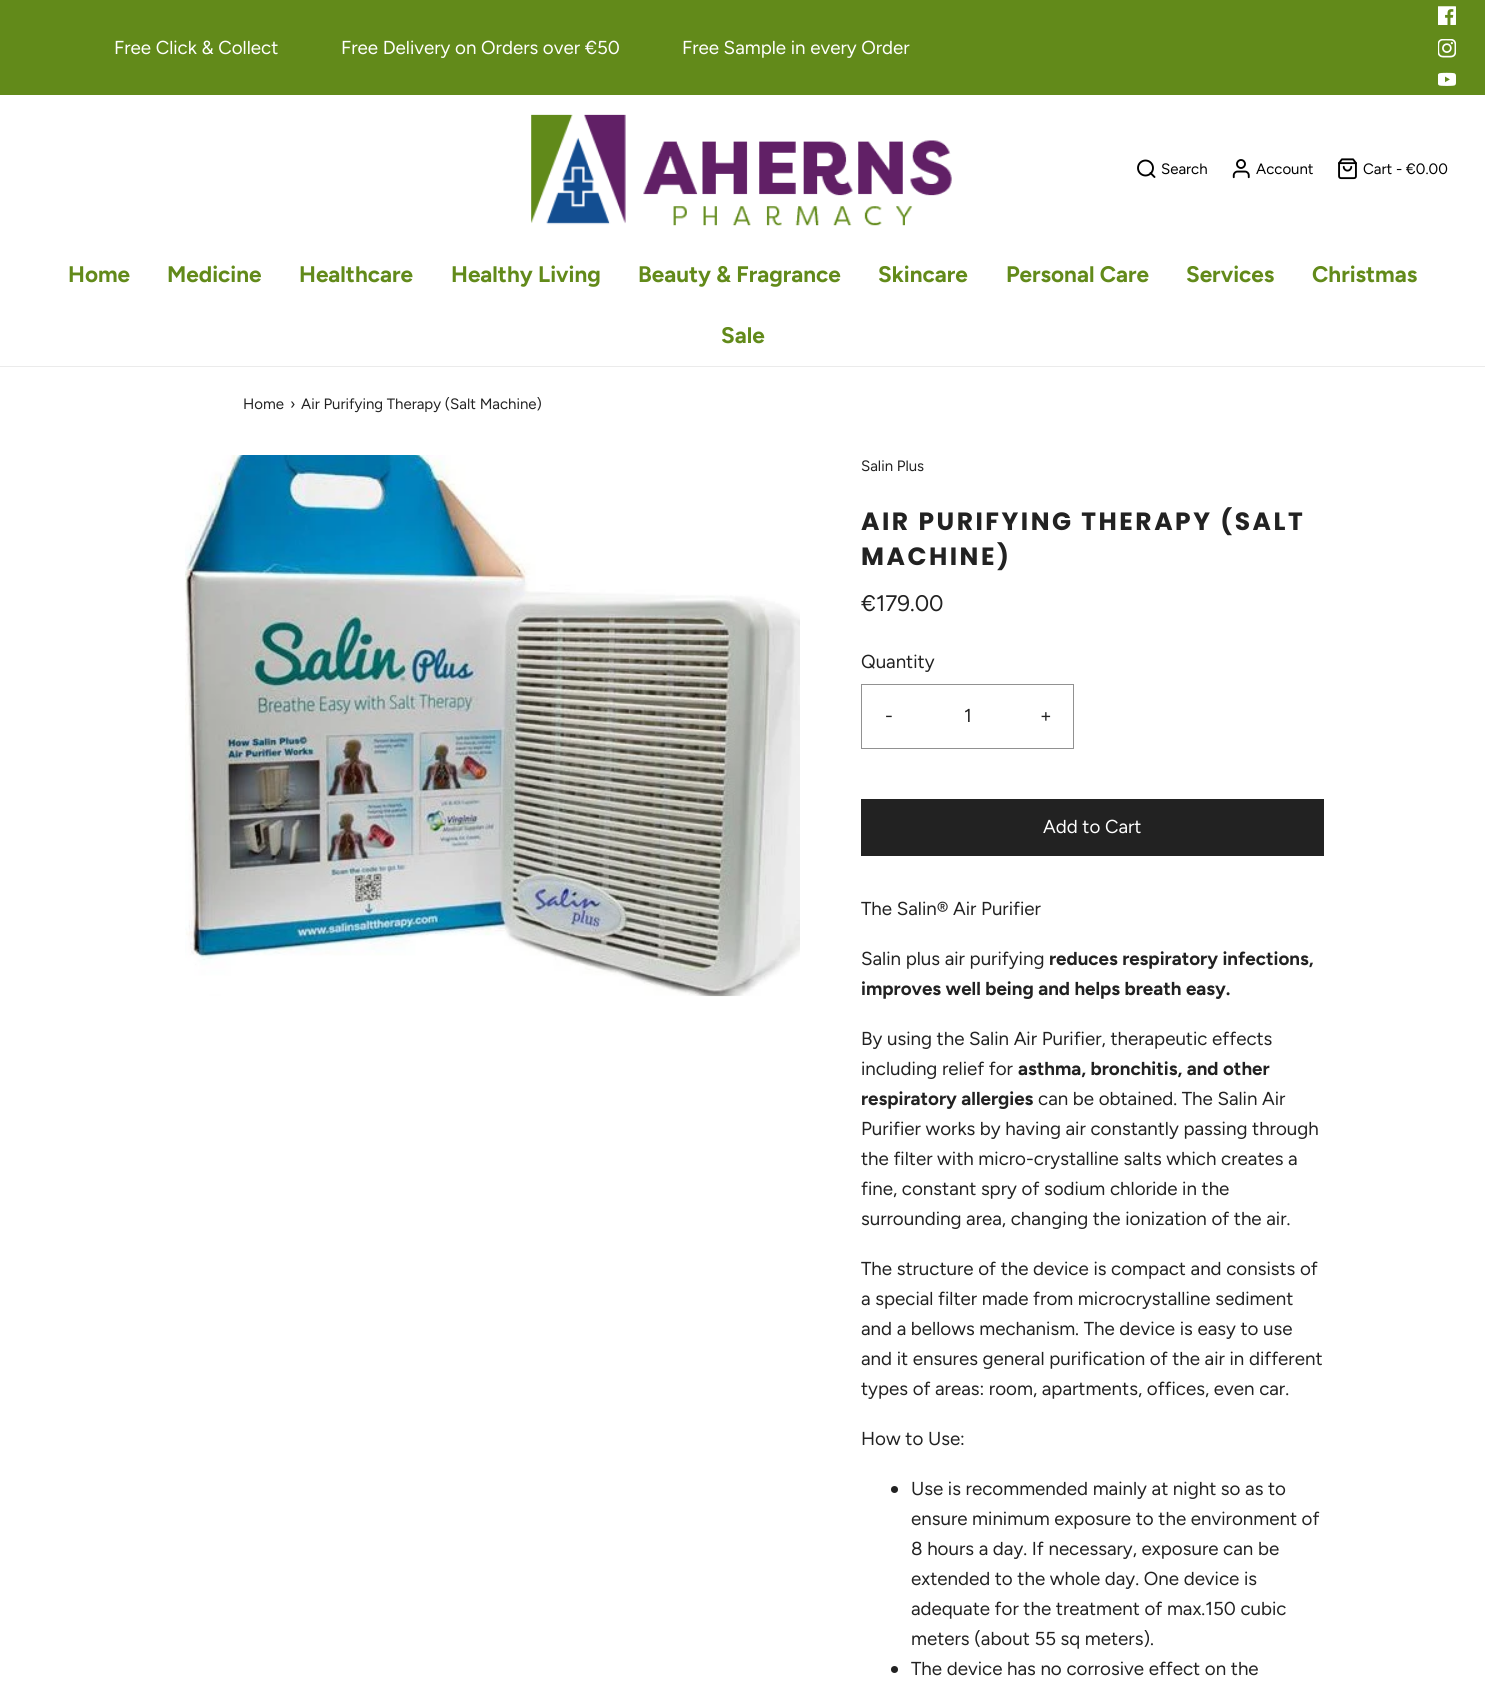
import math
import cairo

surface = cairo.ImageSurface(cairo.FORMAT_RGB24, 1485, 1692)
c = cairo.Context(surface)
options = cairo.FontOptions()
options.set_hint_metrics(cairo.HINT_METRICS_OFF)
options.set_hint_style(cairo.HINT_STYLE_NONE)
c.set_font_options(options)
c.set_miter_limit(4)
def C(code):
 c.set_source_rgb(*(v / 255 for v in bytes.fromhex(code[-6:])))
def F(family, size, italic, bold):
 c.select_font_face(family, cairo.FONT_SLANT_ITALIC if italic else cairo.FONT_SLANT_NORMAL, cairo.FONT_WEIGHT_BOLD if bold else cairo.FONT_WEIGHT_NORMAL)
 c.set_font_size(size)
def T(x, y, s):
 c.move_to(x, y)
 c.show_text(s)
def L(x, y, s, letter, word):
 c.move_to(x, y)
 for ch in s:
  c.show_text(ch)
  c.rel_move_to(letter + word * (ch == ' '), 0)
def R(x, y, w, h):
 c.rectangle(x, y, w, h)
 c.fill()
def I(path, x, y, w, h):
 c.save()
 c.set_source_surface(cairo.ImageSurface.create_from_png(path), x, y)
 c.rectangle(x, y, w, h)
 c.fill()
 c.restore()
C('ffffff')
c.paint()
C('628a1a')
R(0,0,1485,95)
F('Figtree',18.75,0,0)
C('ffffff')
T(114,54,'Free Click & Collect')
T(341,54,'Free Delivery on Orders over €50')
T(682,54,'Free Sample in every Order')
I('1.png',1438,6,18,19)
I('2.png',1438,39,18,19)
I('3.png',1438,72,18,14)
C('ebebeb')
R(0,366,1485,1)
I('4.png',531,114,421,112)
c.arc(1145.5,168,7.5,0,2 * math.pi)
C('000000')
c.set_line_width(1.9)
c.stroke()
c.new_path()
c.move_to(1154.5,177)
c.line_to(1150.5,173)
c.set_line_cap(cairo.LINE_CAP_ROUND)
c.set_line_join(cairo.LINE_JOIN_ROUND)
c.stroke()
F('Figtree',15,0,0)
T(1161,174,'Search')
I('5.png',1232,159,18,20)
T(1256,174,'Account')
I('6.png',1338,158,19,22)
T(1363,174,'Cart - €0.00')
F('Figtree',22.5,0,1)
C('628a1a')
T(68,282,'Home')
T(167,282,'Medicine')
T(299,282,'Healthcare')
T(451,282,'Healthy Living')
T(638,282,'Beauty & Fragrance')
T(878,282,'Skincare')
T(1006,282,'Personal Care')
T(1186,282,'Services')
T(1312,282,'Christmas')
T(721,343,'Sale')
F('Figtree',15,0,0)
C('222222')
T(243,409,'Home')
T(290,409,'›')
T(301,409,'Air Purifying Therapy (Salt Machine)')
I('7.png',185,455,615,542)
T(861,471,'Salin Plus')
F('Poppins',25,0,1)
L(861,530,'AIR PURIFYING THERAPY (SALT',2.5,0)
L(861,565,'MACHINE)',2.5,0)
F('Figtree',22.5,0,0)
T(861,611,'€179.00')
F('Figtree',18.75,0,0)
T(861,668,'Quantity')
c.rectangle(861.5,684.5,212,64)
C('919191')
c.set_line_width(1)
c.set_line_cap(cairo.LINE_CAP_BUTT)
c.set_line_join(cairo.LINE_JOIN_MITER)
c.stroke()
C('222222')
T(885,722,'-')
T(964,722,'1')
T(1040,722,'+')
R(861,799,463,57)
C('ffffff')
T(1043,833,'Add to Cart')
C('222222')
T(861,915,'The Salin® Air Purifier')
T(861,965,'Salin plus air purifying')
F('Figtree',18.75,0,1)
T(1049,965,'reduces respiratory infections,')
T(861,995,'improves well being and helps breath easy.')
F('Figtree',18.75,0,0)
T(861,1045,'By using the Salin Air Purifier, therapeutic effects')
T(861,1075,'including relief for')
F('Figtree',18.75,0,1)
T(1018,1075,'asthma, bronchitis, and other')
T(861,1105,'respiratory allergies')
F('Figtree',18.75,0,0)
T(1038,1105,'can be obtained. The Salin Air')
T(861,1135,'Purifier works by having air constantly passing through')
T(861,1165,'the filter with micro-crystalline salts which creates a')
T(861,1195,'fine, constant spry of sodium chloride in the')
T(861,1225,'surrounding area, changing the ionization of the air.')
T(861,1275,'The structure of the device is compact and consists of')
T(861,1305,'a special filter made from microcrystalline sediment')
T(861,1335,'and a bellows mechanism. The device is easy to use')
T(861,1365,'and it ensures general purification of the air in different')
T(861,1395,'types of areas: room, apartments, offices, even car.')
T(861,1445,'How to Use:')
c.new_path()
c.arc(894.5,1489.5,3.5,0,2 * math.pi)
c.fill()
T(911,1495,'Use is recommended mainly at night so as to')
T(911,1525,'ensure minimum exposure to the environment of')
T(911,1555,'8 hours a day. If necessary, exposure can be')
T(911,1585,'extended to the whole day. One device is')
T(911,1615,'adequate for the treatment of max.150 cubic')
T(911,1645,'meters (about 55 sq meters).')
c.new_path()
c.arc(894.5,1669.5,3.5,0,2 * math.pi)
c.fill()
T(911,1675,'The device has no corrosive effect on the')
surface.write_to_png('o.png')
